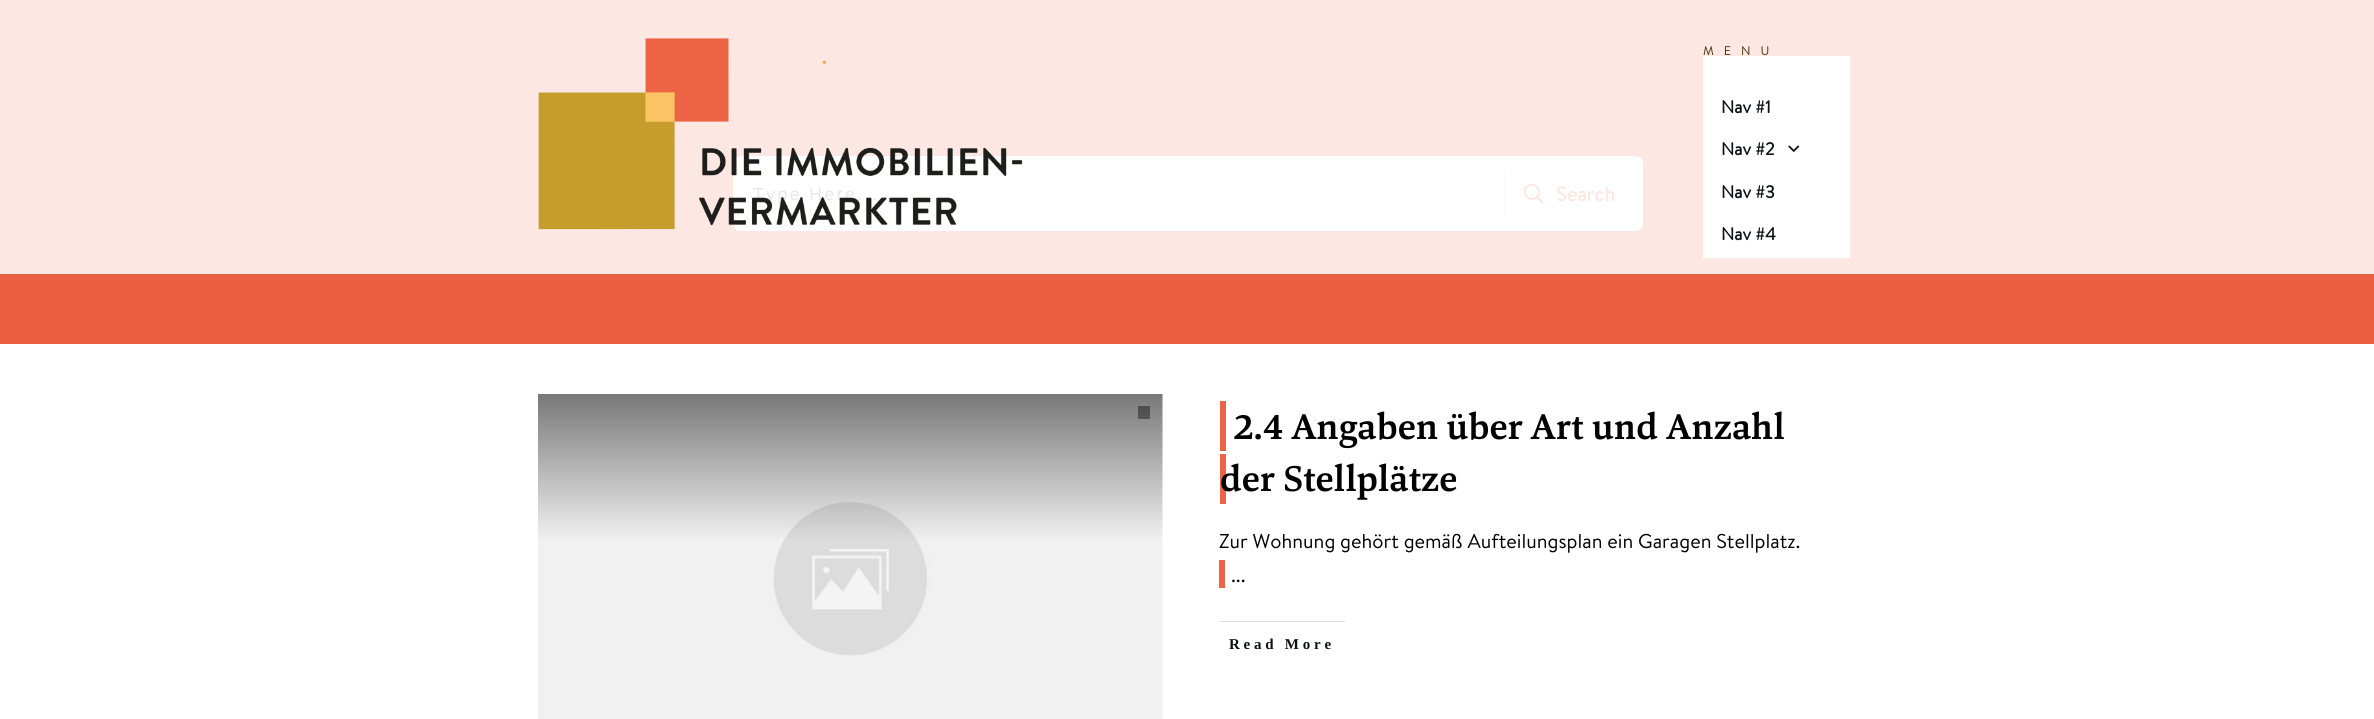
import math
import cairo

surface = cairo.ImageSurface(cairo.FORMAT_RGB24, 2374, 719)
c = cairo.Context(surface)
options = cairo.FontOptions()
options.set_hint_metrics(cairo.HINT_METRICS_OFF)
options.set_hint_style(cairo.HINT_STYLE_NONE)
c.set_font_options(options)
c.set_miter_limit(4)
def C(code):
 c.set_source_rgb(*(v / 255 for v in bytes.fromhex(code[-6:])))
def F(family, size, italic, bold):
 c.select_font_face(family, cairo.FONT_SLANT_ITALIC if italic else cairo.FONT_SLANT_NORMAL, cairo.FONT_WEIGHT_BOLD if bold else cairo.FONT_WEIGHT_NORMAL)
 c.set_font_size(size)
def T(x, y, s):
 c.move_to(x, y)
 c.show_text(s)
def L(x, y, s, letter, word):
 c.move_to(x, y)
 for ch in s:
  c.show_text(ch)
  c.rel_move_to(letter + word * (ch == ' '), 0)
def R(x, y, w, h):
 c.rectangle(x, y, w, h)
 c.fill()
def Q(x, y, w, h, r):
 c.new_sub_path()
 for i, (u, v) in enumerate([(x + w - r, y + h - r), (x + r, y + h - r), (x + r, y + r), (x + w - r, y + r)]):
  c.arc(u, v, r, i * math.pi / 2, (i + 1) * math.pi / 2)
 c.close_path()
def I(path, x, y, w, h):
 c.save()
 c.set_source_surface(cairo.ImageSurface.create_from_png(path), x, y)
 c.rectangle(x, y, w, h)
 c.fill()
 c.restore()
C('ffffff')
c.paint()
C('ec6041')
R(0,274,2374,70)
C('fce7e3')
R(0,0,2374,274)
C('ffffff')
Q(733,156,910,75,8)
c.fill()
F('Liberation Sans',17.5,0,0)
C('e8e8e8')
L(753,200,'Type Here...',2.5,0)
C('f9f9f9')
R(1504,171,1,45)
I('1.png',1524,184,20,20)
F('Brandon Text',20,0,1)
C('fce7e3')
T(1556,201,'Search')
I('2.png',538,38,485,192)
F('Brandon Text',12.5,0,0)
C('3d3505')
L(1703,55,'MENU',10,0)
C('ffffff')
R(1703,56,147,202)
F('Brandon Text',17.5,0,1)
C('0c1115')
T(1721,113,'Nav #1')
T(1721,155,'Nav #2')
I('3.png',1788,145,12,7)
T(1721,198,'Nav #3')
T(1721,240,'Nav #4')
I('4.png',538,394,625,325)
c.set_source_rgba(0,0,0,0.4)
R(1138,406,12,13)
F('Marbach',37.5,0,1)
C('000000')
T(1233,439,'2.4 Angaben über Art und Anzahl')
C('ec6443')
R(1220,401,6,50)
R(1220,454,6,50)
C('000000')
T(1220,491,'der Stellplätze')
F('Brandon Text',20,0,0)
T(1219,548,'Zur Wohnung gehört gemäß Aufteilungsplan ein Garagen Stellplatz.')
T(1231,582,'...')
C('ec6443')
R(1219,560,6,28)
C('e0e0e0')
R(1219,621,126,1)
F('Liberation Serif',15,0,1)
C('0c1115')
L(1229,649,'Read More',3.75,0)
surface.write_to_png('o.png')
